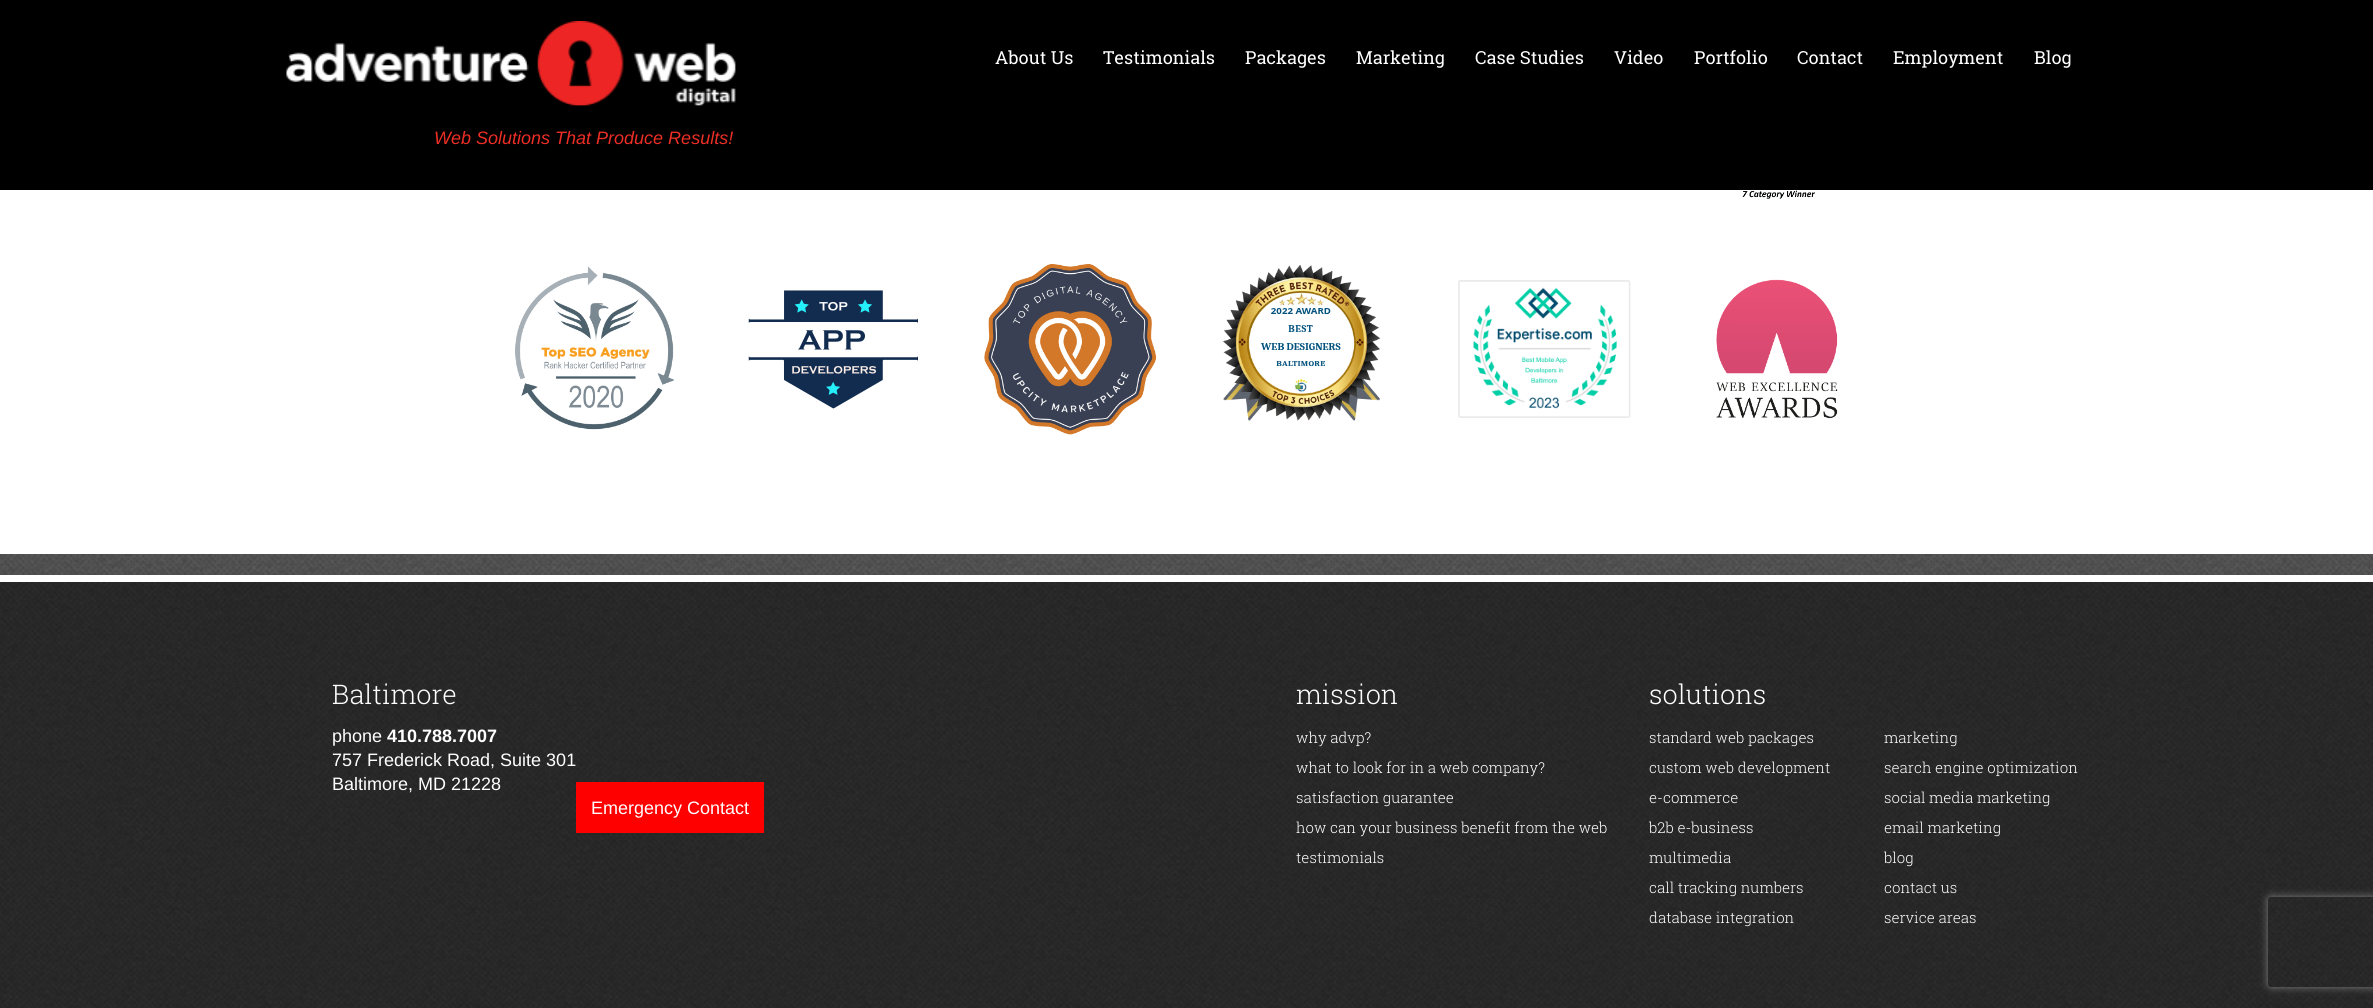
import math
import cairo

surface = cairo.ImageSurface(cairo.FORMAT_RGB24, 2373, 1008)
c = cairo.Context(surface)
options = cairo.FontOptions()
options.set_hint_metrics(cairo.HINT_METRICS_OFF)
options.set_hint_style(cairo.HINT_STYLE_NONE)
c.set_font_options(options)
c.set_miter_limit(4)
def C(code):
 c.set_source_rgb(*(v / 255 for v in bytes.fromhex(code[-6:])))
def F(family, size, italic, bold):
 c.select_font_face(family, cairo.FONT_SLANT_ITALIC if italic else cairo.FONT_SLANT_NORMAL, cairo.FONT_WEIGHT_BOLD if bold else cairo.FONT_WEIGHT_NORMAL)
 c.set_font_size(size)
def T(x, y, s):
 c.move_to(x, y)
 c.show_text(s)
def R(x, y, w, h):
 c.rectangle(x, y, w, h)
 c.fill()
def Q(x, y, w, h, r):
 c.new_sub_path()
 for i, (u, v) in enumerate([(x + w - r, y + h - r), (x + r, y + h - r), (x + r, y + r), (x + w - r, y + r)]):
  c.arc(u, v, r, i * math.pi / 2, (i + 1) * math.pi / 2)
 c.close_path()
def S(x, y, w, h, r, blur, alpha):
 c.push_group_with_content(cairo.CONTENT_ALPHA)
 c.set_operator(cairo.OPERATOR_SOURCE)
 for i in range(15, -16, -2):
  e = blur * i / 6
  if min(w, h) + 2 * e > 0:
   c.set_source_rgba(0, 0, 0, alpha * math.erfc((i - 1) / 8.5) / 2)
   Q(x - e, y - e, w + 2 * e, h + 2 * e, max(0, min(r + e + blur * .6, min(w, h) / 2 + e)))
   c.fill()
 c.mask(c.pop_group())
def I(path, x, y, w, h):
 c.save()
 c.set_source_surface(cairo.ImageSurface.create_from_png(path), x, y)
 c.rectangle(x, y, w, h)
 c.fill()
 c.restore()
C('ffffff')
c.paint()
I('1.png',0,554,2373,454)
C('000000')
R(0,0,2373,190)
F('Roboto Slab',18,0,0)
C('ffffff')
T(995,64,'About Us')
T(1103,64,'Testimonials')
T(1245,64,'Packages')
T(1356,64,'Marketing')
T(1475,64,'Case Studies')
T(1614,64,'Video')
T(1694,64,'Portfolio')
T(1797,64,'Contact')
T(1893,64,'Employment')
T(2034,64,'Blog')
I('2.png',286,21,450,86)
F('Liberation Sans',18,1,0)
C('ec2e25')
T(434,144,'Web Solutions That Produce Results!')
I('3.png',1742,190,73,9)
I('4.png',515,266,160,164)
I('5.png',748,290,170,119)
I('6.png',984,264,173,171)
I('7.png',1223,264,158,157)
I('8.png',1458,280,173,138)
I('9.png',1716,279,122,140)
c.set_source_rgba(0,0,0,0.5)
R(0,582,2373,426)
C('ffffff')
R(0,575,2373,7)
F('Roboto Slab Light',27,0,0)
T(332,704,'Baltimore')
F('Liberation Sans',18,0,0)
T(332,742,'phone')
F('Liberation Sans',18,0,1)
T(387,742,'410.788.7007')
F('Liberation Sans',18,0,0)
T(332,766,'757 Frederick Road, Suite 301')
T(332,790,'Baltimore, MD 21228')
C('ff0000')
R(576,782,188,51)
C('ffffff')
T(591,814,'Emergency Contact')
F('Roboto Slab Light',27,0,0)
T(1296,704,'mission')
F('Roboto Slab Light',15,0,0)
T(1296,743,'why advp?')
T(1296,773,'what to look for in a web company?')
T(1296,803,'satisfaction guarantee')
T(1296,833,'how can your business benefit from the web')
T(1296,863,'testimonials')
F('Roboto Slab Light',27,0,0)
T(1649,704,'solutions')
F('Roboto Slab Light',15,0,0)
T(1649,743,'standard web packages')
T(1649,773,'custom web development')
T(1649,803,'e-commerce')
T(1649,833,'b2b e-business')
T(1649,863,'multimedia')
T(1649,893,'call tracking numbers')
T(1649,923,'database integration')
T(1884,743,'marketing')
T(1884,773,'search engine optimization')
T(1884,803,'social media marketing')
T(1884,833,'email marketing')
T(1884,863,'blog')
T(1884,893,'contact us')
T(1884,923,'service areas')
c.save()
c.set_fill_rule(cairo.FILL_RULE_EVEN_ODD)
c.new_path()
c.move_to(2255,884)
c.line_to(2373,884)
c.line_to(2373,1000)
c.line_to(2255,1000)
c.close_path()
c.move_to(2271,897)
c.line_to(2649,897)
c.curve_to(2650.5,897,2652,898.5,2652,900)
c.line_to(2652,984)
c.curve_to(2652,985.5,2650.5,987,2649,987)
c.line_to(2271,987)
c.curve_to(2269.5,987,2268,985.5,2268,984)
c.line_to(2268,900)
c.curve_to(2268,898.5,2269.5,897,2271,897)
c.close_path()
c.clip()
C('808080')
S(2268,897,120,90,3,4,1)
c.restore()
surface.write_to_png('o.png')
